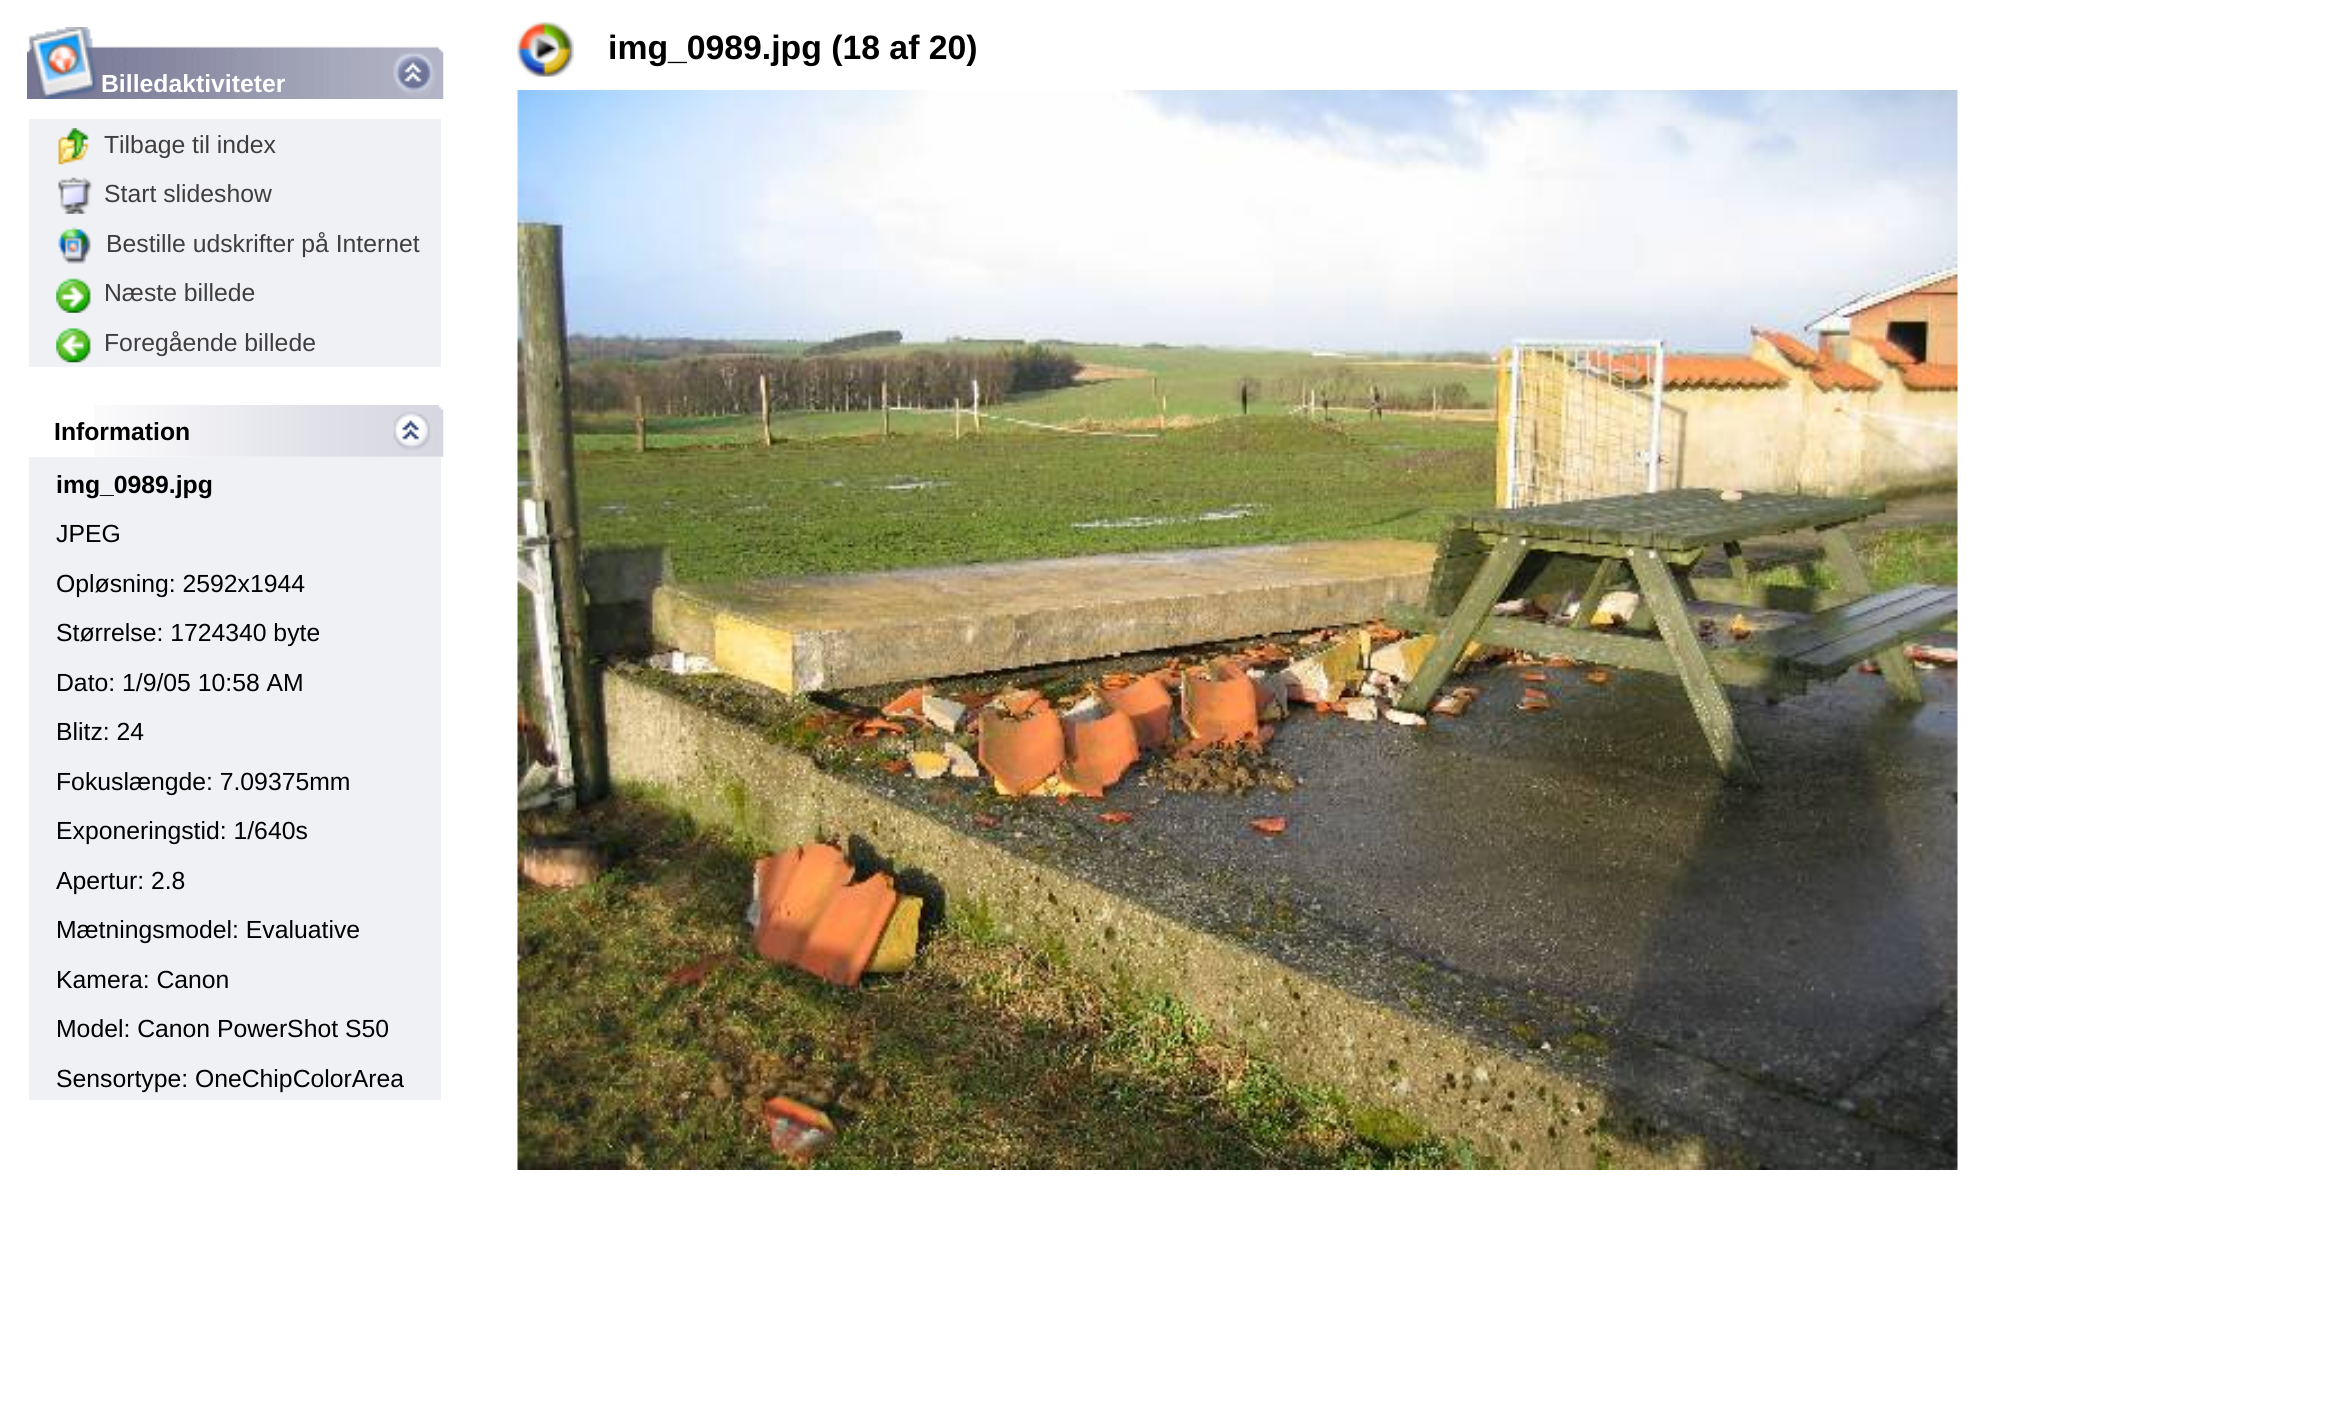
import math
import cairo

surface = cairo.ImageSurface(cairo.FORMAT_RGB24, 2333, 1420)
c = cairo.Context(surface)
options = cairo.FontOptions()
options.set_hint_metrics(cairo.HINT_METRICS_OFF)
options.set_hint_style(cairo.HINT_STYLE_NONE)
c.set_font_options(options)
c.set_miter_limit(4)
def C(code):
 c.set_source_rgb(*(v / 255 for v in bytes.fromhex(code[-6:])))
def F(family, size, italic, bold):
 c.select_font_face(family, cairo.FONT_SLANT_ITALIC if italic else cairo.FONT_SLANT_NORMAL, cairo.FONT_WEIGHT_BOLD if bold else cairo.FONT_WEIGHT_NORMAL)
 c.set_font_size(size)
def T(x, y, s):
 c.move_to(x, y)
 c.show_text(s)
def R(x, y, w, h):
 c.rectangle(x, y, w, h)
 c.fill()
def I(path, x, y, w, h):
 c.save()
 c.set_source_surface(cairo.ImageSurface.create_from_png(path), x, y)
 c.rectangle(x, y, w, h)
 c.fill()
 c.restore()
C('ffffff')
c.paint()
I('1.png',517,22,57,55)
F('Liberation Sans',33.75,0,1)
C('000000')
T(608,59,'img_0989.jpg (18 af 20)')
I('2.png',27,27,417,72)
F('Liberation Sans',24.75,0,1)
C('ffffff')
T(101,92,'Billedaktiviteter')
C('f0f1f5')
R(29,119,412,248)
I('3.png',58,128,31,37)
F('Liberation Sans',24.75,0,0)
C('3f3d3d')
T(104,153,'Tilbage til index')
I('4.png',58,177,35,37)
T(104,202,'Start slideshow')
I('5.png',58,227,33,37)
T(106,252,'Bestille udskrifter på Internet')
I('6.png',56,278,35,35)
T(104,301,'Næste billede')
I('7.png',56,328,35,35)
T(104,351,'Foregående billede')
I('8.png',94,405,350,52)
F('Liberation Sans',24.75,0,1)
C('000000')
T(54,440,'Information')
C('f0f1f5')
R(29,457,412,643)
C('000000')
T(56,493,'img_0989.jpg')
F('Liberation Sans',24.75,0,0)
T(56,542,'JPEG')
T(56,592,'Opløsning: 2592x1944')
T(56,641,'Størrelse: 1724340 byte')
T(56,691,'Dato: 1/9/05 10:58 AM')
T(56,740,'Blitz: 24')
T(56,790,'Fokuslængde: 7.09375mm')
T(56,839,'Exponeringstid: 1/640s')
T(56,889,'Apertur: 2.8')
T(56,938,'Mætningsmodel: Evaluative')
T(56,988,'Kamera: Canon')
T(56,1037,'Model: Canon PowerShot S50')
T(56,1087,'Sensortype: OneChipColorArea')
I('9.png',517,90,1441,1080)
surface.write_to_png('o.png')
